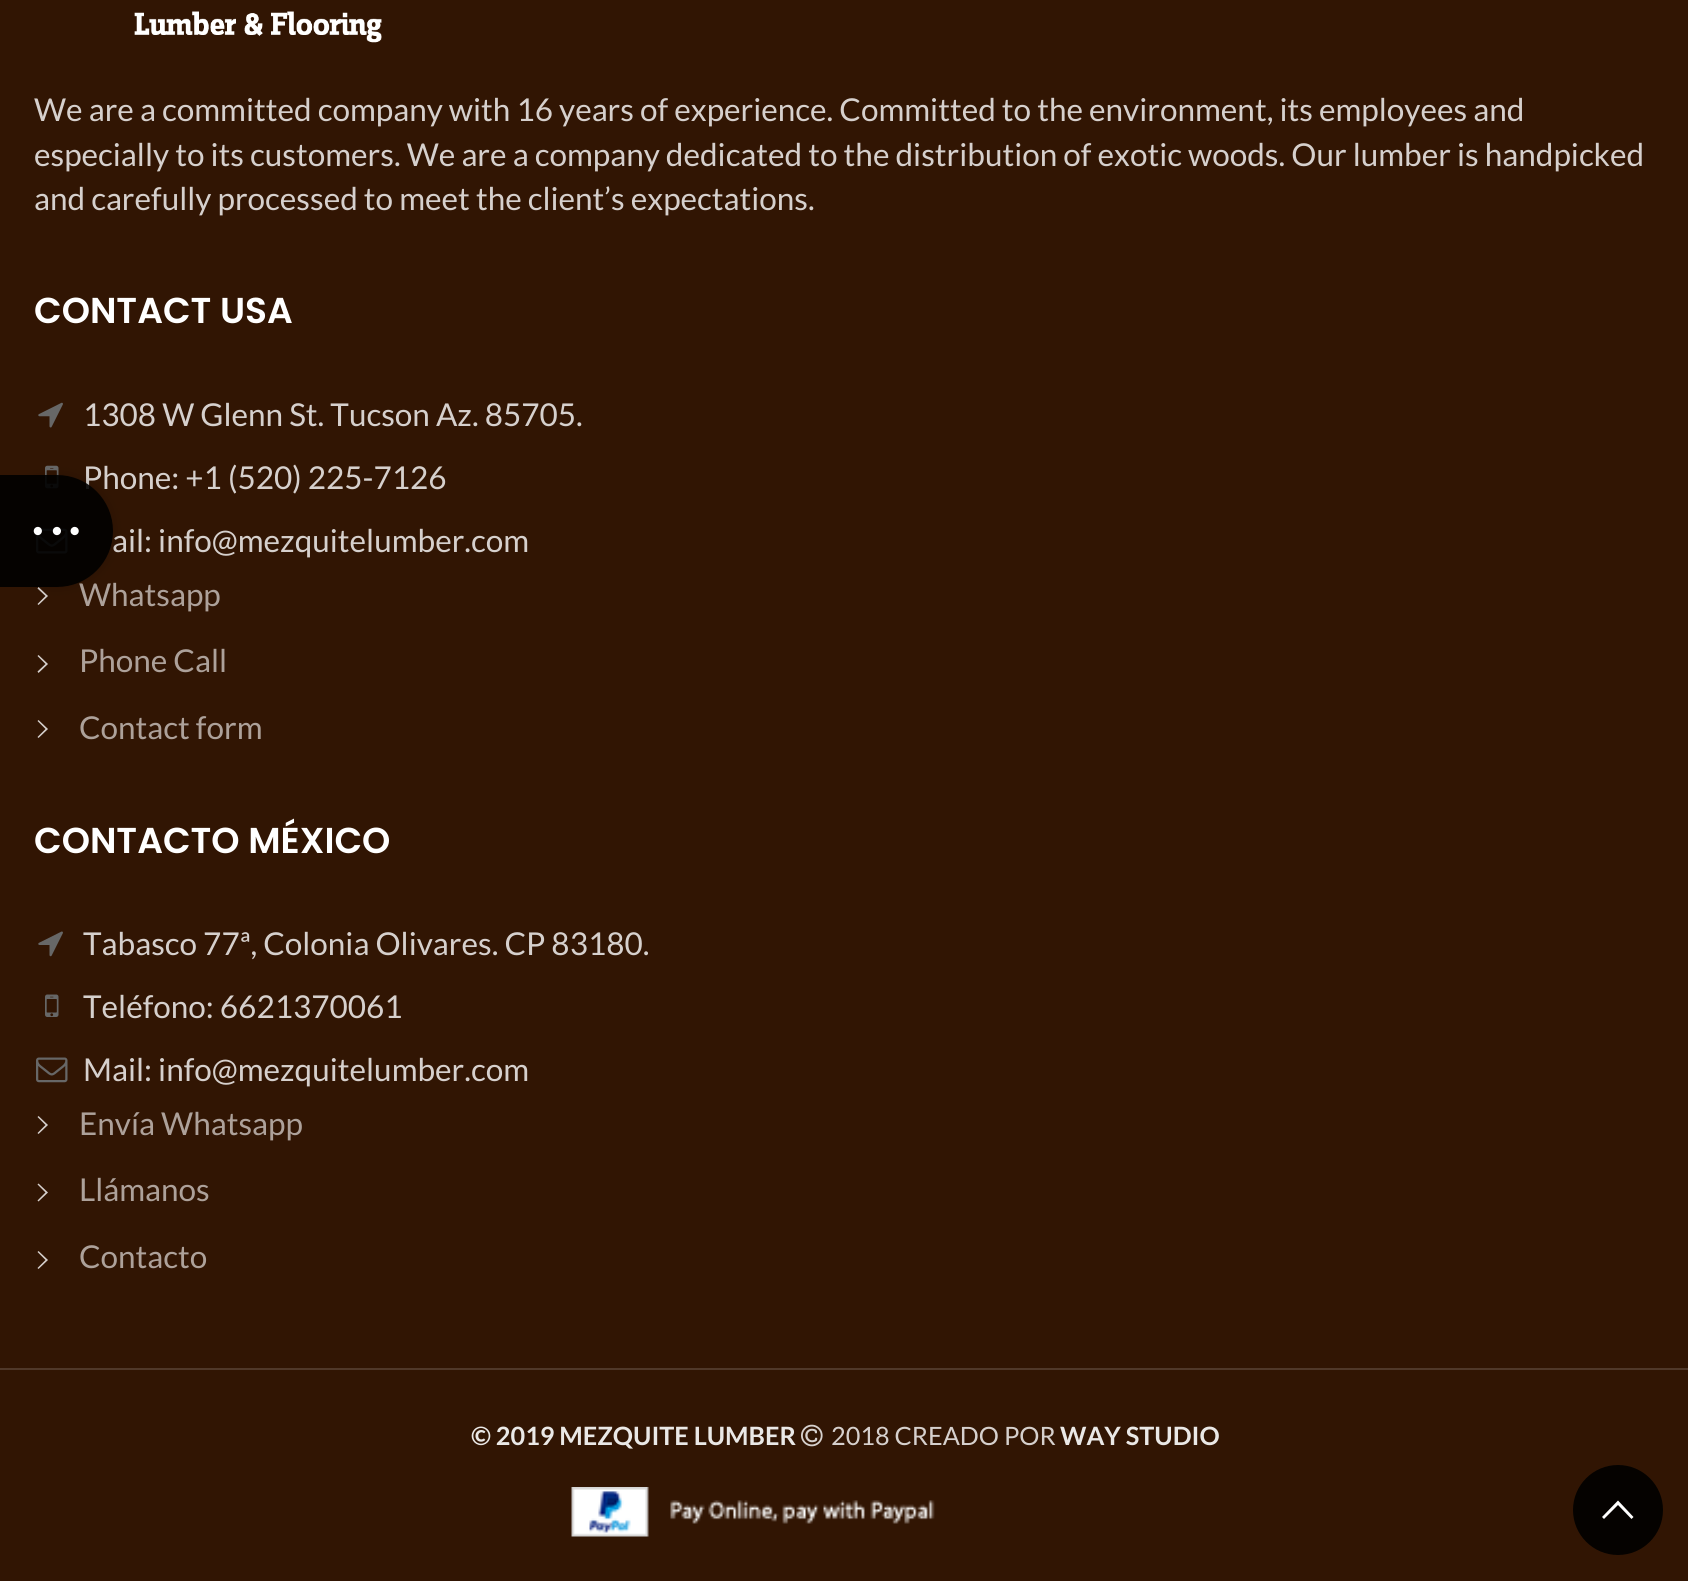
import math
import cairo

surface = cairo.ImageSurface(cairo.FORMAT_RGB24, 1688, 1581)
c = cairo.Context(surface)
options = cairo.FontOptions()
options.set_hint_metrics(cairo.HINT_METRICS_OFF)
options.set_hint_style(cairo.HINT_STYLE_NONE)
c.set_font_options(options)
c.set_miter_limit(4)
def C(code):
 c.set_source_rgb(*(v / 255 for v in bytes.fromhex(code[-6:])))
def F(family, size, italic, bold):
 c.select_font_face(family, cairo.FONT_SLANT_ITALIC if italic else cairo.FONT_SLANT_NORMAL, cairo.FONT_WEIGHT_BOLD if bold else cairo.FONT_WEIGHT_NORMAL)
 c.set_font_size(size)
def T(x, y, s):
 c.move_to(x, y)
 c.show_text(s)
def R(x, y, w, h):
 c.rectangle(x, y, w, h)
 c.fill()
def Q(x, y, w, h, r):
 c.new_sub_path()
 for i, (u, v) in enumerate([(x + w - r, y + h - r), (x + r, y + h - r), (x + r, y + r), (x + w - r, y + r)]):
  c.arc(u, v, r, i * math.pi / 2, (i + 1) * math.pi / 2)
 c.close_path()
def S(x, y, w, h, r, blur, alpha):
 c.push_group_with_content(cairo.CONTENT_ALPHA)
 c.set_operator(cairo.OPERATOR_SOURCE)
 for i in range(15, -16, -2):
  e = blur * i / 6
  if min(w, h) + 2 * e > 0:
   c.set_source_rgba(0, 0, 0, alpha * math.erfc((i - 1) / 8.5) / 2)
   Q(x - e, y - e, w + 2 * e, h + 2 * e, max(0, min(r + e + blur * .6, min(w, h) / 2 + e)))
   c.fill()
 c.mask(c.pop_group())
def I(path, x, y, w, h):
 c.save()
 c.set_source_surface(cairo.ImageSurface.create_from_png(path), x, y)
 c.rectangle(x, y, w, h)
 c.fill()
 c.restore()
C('311503')
c.paint()
I('1.png',134,11,248,32)
F('Lato',31.5,0,0)
C('d6d0cd')
T(34,121,'We are a committed company with 16 years of experience. Committed to the environment, its employees and')
T(34,166,'especially to its customers. We are a company dedicated to the distribution of exotic woods. Our lumber is handpicked')
T(34,210,'and carefully processed to meet the client’s expectations.')
F('Poppins SemiBold',36,0,0)
C('ffffff')
T(34,323,'CONTACT USA')
I('2.png',38,402,25,26)
F('Lato',31.5,0,0)
C('d6d0cd')
T(83,426,'1308 W Glenn St. Tucson Az. 85705.')
I('3.png',45,465,14,24)
T(83,489,'Phone: +1 (520) 225-7126')
I('4.png',36,528,32,26)
T(112,552,'ail: info@mezquitelumber.com')
c.new_path()
c.move_to(38.5,587)
c.line_to(37.5,588.5)
c.line_to(45.5,596)
c.line_to(37.5,604)
c.line_to(38.5,605)
c.line_to(48,596)
c.close_path()
c.fill()
C('ada19a')
T(79,606,'Whatsapp')
C('d6d0cd')
c.new_path()
c.move_to(38.5,655)
c.line_to(37.5,656)
c.line_to(45.5,664)
c.line_to(37.5,671.5)
c.line_to(38.5,673)
c.line_to(48,664)
c.close_path()
c.fill()
C('ada19a')
T(79,672,'Phone Call')
C('d6d0cd')
c.new_path()
c.move_to(38.5,720)
c.line_to(37.5,721)
c.line_to(45.5,729)
c.line_to(37.5,737)
c.line_to(38.5,738)
c.line_to(48,729)
c.close_path()
c.fill()
C('ada19a')
T(79,739,'Contact form')
F('Poppins SemiBold',36,0,0)
C('ffffff')
T(34,853,'CONTACTO MÉXICO')
I('5.png',38,931,25,26)
F('Lato',31.5,0,0)
C('d6d0cd')
T(83,955,'Tabasco 77ª, Colonia Olivares. CP 83180.')
I('6.png',45,994,14,23)
T(83,1018,'Teléfono: 6621370061')
I('7.png',36,1057,32,26)
T(83,1081,'Mail: info@mezquitelumber.com')
c.new_path()
c.move_to(38.5,1116)
c.line_to(37.5,1117)
c.line_to(45.5,1125)
c.line_to(37.5,1133)
c.line_to(38.5,1134)
c.line_to(48,1125)
c.close_path()
c.fill()
C('ada19a')
T(79,1135,'Envía Whatsapp')
C('d6d0cd')
c.new_path()
c.move_to(38.5,1183.5)
c.line_to(37.5,1184.5)
c.line_to(45.5,1192.5)
c.line_to(37.5,1200.5)
c.line_to(38.5,1201.5)
c.line_to(48,1192.5)
c.close_path()
c.fill()
C('ada19a')
T(79,1201,'Llámanos')
C('d6d0cd')
c.new_path()
c.move_to(38.5,1251)
c.line_to(37.5,1252)
c.line_to(45.5,1260)
c.line_to(37.5,1268)
c.line_to(38.5,1269)
c.line_to(48,1260)
c.close_path()
c.fill()
C('ada19a')
T(79,1268,'Contacto')
C('503829')
R(0,1368,1688,2)
F('Lato',25.25,0,1)
C('eae8e6')
T(471,1445,'© 2019 MEZQUITE LUMBER')
I('8.png',801,1424,22,23)
F('Lato',25.25,0,0)
C('d6d0cd')
T(831,1445,'2018 CREADO POR')
F('Lato',25.25,0,1)
C('eae8e6')
T(1060,1445,'WAY STUDIO')
I('9.png',571,1487,364,50)
c.save()
c.set_fill_rule(cairo.FILL_RULE_EVEN_ODD)
c.new_path()
c.move_to(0,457)
c.line_to(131,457)
c.line_to(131,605)
c.line_to(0,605)
c.close_path()
c.move_to(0,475)
c.line_to(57,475)
c.curve_to(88,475,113,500,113,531)
c.curve_to(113,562,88,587,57,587)
c.line_to(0,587)
c.close_path()
c.clip()
C('000000')
S(0,475,113,112,56,5.5,.17)
c.restore()
c.set_source_rgba(0,0,0,0.9)
c.new_path()
c.move_to(0,475)
c.line_to(57,475)
c.curve_to(88,475,113,500,113,531)
c.curve_to(113,562,88,587,57,587)
c.line_to(0,587)
c.close_path()
c.fill()
I('10.png',33,526,46,10)
c.arc(1618,1510,45,0,2 * math.pi)
c.fill()
C('ffffff')
c.new_path()
c.move_to(1618,1500.5)
c.line_to(1602,1517)
c.line_to(1604,1519)
c.line_to(1618,1505)
c.line_to(1631.5,1519)
c.line_to(1633.5,1517)
c.close_path()
c.fill()
surface.write_to_png('o.png')
